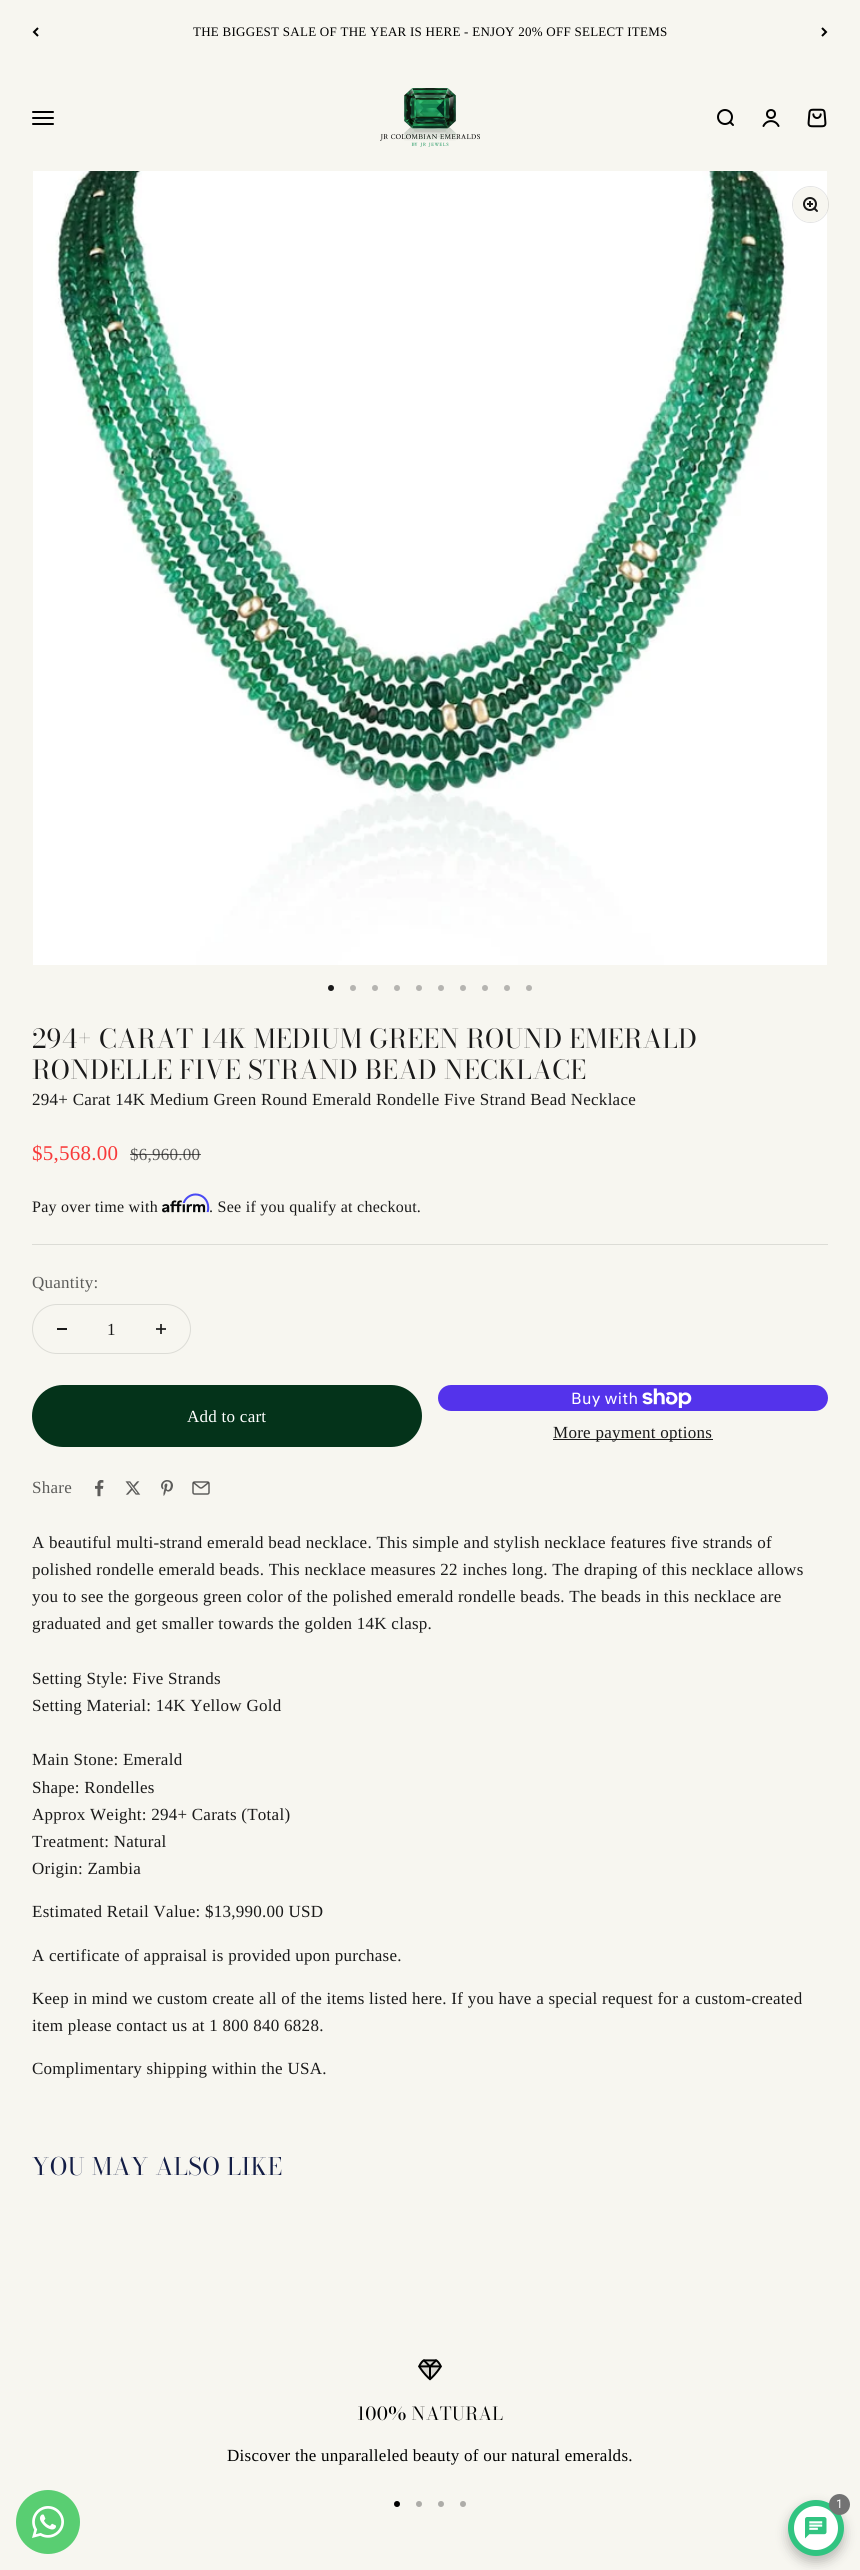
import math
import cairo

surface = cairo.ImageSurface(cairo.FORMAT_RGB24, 860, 2570)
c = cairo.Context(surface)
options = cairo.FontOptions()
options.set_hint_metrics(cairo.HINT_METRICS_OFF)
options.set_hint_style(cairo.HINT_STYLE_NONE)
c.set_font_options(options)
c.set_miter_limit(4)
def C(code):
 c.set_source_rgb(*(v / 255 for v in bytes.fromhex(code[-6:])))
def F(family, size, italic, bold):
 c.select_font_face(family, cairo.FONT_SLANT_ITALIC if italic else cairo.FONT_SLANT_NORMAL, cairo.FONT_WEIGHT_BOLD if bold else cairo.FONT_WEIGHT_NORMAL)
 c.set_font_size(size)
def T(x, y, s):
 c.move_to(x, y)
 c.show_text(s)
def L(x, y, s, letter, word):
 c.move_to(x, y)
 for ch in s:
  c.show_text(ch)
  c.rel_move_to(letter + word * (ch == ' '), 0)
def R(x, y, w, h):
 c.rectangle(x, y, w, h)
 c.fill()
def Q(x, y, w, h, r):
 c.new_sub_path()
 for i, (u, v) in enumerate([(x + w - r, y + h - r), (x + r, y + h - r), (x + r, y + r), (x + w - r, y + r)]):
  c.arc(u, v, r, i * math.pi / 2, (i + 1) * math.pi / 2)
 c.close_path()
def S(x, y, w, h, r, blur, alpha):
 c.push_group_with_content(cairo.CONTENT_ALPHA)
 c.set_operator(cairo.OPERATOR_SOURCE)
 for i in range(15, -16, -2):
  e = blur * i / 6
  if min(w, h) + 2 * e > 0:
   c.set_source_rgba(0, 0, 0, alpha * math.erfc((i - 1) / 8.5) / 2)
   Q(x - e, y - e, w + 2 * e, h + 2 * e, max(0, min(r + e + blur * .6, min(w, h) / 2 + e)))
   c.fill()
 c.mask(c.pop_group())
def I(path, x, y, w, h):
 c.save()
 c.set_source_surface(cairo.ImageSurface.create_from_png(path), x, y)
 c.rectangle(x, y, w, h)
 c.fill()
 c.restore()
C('f7f6f0')
c.paint()
C('3b3b3a')
R(156,1328,10,2)
c.new_path()
c.move_to(38,28)
c.line_to(34,32)
c.line_to(38,36)
C('000000')
c.stroke()
F('Liberation Serif',13,0,0)
L(193,36,'THE BIGGEST SALE OF THE YEAR IS HERE - ENJOY 20% OFF SELECT ITEMS',.26,0)
c.new_path()
c.move_to(822,36)
c.line_to(826,32)
c.line_to(822,28)
c.stroke()
I('1.png',32,111,22,14)
I('2.png',380,88,100,59)
I('3.png',717,109,17,17)
c.arc(771,114,4,0,2 * math.pi)
c.stroke()
c.new_path()
c.move_to(763.5,126)
c.curve_to(766.5,119.5,775.5,119.5,778.5,126)
c.set_line_cap(cairo.LINE_CAP_ROUND)
c.stroke()
I('4.png',807,108,20,20)
I('5.png',33,171,794,794)
c.arc(810.5,204.5,18,0,2 * math.pi)
c.set_source_rgba(0.102,0.102,0.102,0.12)
c.set_line_width(1)
c.set_line_cap(cairo.LINE_CAP_BUTT)
c.stroke()
C('f7f6f0')
c.arc(810.5,204.5,17.5,0,2 * math.pi)
c.fill()
I('6.png',803,197,15,15)
C('1a1a1a')
c.arc(331,988,3,0,2 * math.pi)
c.fill()
C('b5b4b0')
c.arc(353,988,3,0,2 * math.pi)
c.fill()
c.arc(375,988,3,0,2 * math.pi)
c.fill()
c.arc(397,988,3,0,2 * math.pi)
c.fill()
c.arc(419,988,3,0,2 * math.pi)
c.fill()
c.arc(441,988,3,0,2 * math.pi)
c.fill()
c.arc(463,988,3,0,2 * math.pi)
c.fill()
c.arc(485,988,3,0,2 * math.pi)
c.fill()
c.arc(507,988,3,0,2 * math.pi)
c.fill()
c.arc(529,988,3,0,2 * math.pi)
c.fill()
F('Bodoni Moda',26,0,0)
C('1a1a1a')
L(32,1048,'294+ CARAT 14K MEDIUM GREEN ROUND EMERALD',.5,0)
L(32,1079,'RONDELLE FIVE STRAND BEAD NECKLACE',.5,0)
F('Liberation Serif',17,0,0)
L(32,1105,'294+ Carat 14K Medium Green Round Emerald Rondelle Five Strand Bead Necklace',.26,0)
F('Liberation Serif',21,0,0)
C('f83a3a')
L(32,1160,'$5,568.00',.26,0)
F('Liberation Serif',17,0,0)
C('5c5c5a')
L(130,1160,'$6,960.00',.26,0)
c.set_source_rgba(0.102,0.102,0.102,0.7)
R(130,1154,71,1)
F('Liberation Serif',16,0,0)
C('1a1a1a')
L(32,1212,'Pay over time with',.26,0)
I('8.png',162,1200,44,13)
I('7.png',182,1193,28,20)
L(209,1212,'. See if you qualify at checkout.',.26,0)
C('dcdcd6')
R(32,1244,796,1)
F('Liberation Serif',17,0,0)
C('5c5c5a')
L(32,1288,'Quantity:',.26,0)
Q(32.5,1304.5,158,49,24.5)
C('dcdcd6')
c.stroke()
C('1a1a1a')
R(57,1328,10,2)
T(107,1335,'1')
C('3b3b3a')
R(160,1324,2,10)
C('1f1f1f')
R(160,1328,2,2)
C('04331a')
Q(32,1385,390,62,31)
c.fill()
C('ffffff')
L(187,1422,'Add to cart',.26,0)
C('5433eb')
Q(438,1385,390,26,13)
c.fill()
F('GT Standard',16,0,0)
C('ffffff')
L(571,1404,'Buy with',.26,0)
I('9.png',642,1388,50,20)
C('1a1a1a')
R(553,1439,160,1)
F('Liberation Serif',17,0,0)
L(553,1438,'More payment options',.26,0)
C('5c5c5a')
L(32,1493,'Share',.26,0)
I('10.png',95,1480,9,17)
I('11.png',125,1481,16,14)
I('12.png',161,1480,12,16)
I('13.png',192,1481,18,14)
C('1a1a1a')
L(32,1548,'A beautiful multi-strand emerald bead necklace. This simple and stylish necklace features five strands of',.26,0)
L(32,1575,'polished rondelle emerald beads. This necklace measures 22 inches long. The draping of this necklace allows',.26,0)
L(32,1602,'you to see the gorgeous green color of the polished emerald rondelle beads. The beads in this necklace are',.26,0)
L(32,1629,'graduated and get smaller towards the golden 14K clasp.',.26,0)
L(32,1684,'Setting Style: Five Strands',.26,0)
L(32,1711,'Setting Material: 14K Yellow Gold',.26,0)
L(32,1765,'Main Stone: Emerald',.26,0)
L(32,1793,'Shape: Rondelles',.26,0)
L(32,1820,'Approx Weight: 294+ Carats (Total)',.26,0)
L(32,1847,'Treatment: Natural',.26,0)
L(32,1874,'Origin: Zambia',.26,0)
L(32,1917,'Estimated Retail Value: $13,990.00 USD',.26,0)
L(32,1961,'A certificate of appraisal is provided upon purchase.',.26,0)
L(32,2004,'Keep in mind we custom create all of the items listed here. If you have a special request for a custom-created',.26,0)
L(32,2031,'item please contact us at 1 800 840 6828.',.26,0)
L(32,2074,'Complimentary shipping within the USA.',.26,0)
F('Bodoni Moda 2',24,0,0)
C('141e46')
L(32,2175,'YOU MAY ALSO LIKE',.5,0)
I('14.png',418,2359,24,22)
F('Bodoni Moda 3',18,0,0)
C('000000')
L(357,2420,'100% NATURAL',.4,0)
F('Liberation Serif',17,0,0)
L(227,2461,'Discover the unparalleled beauty of our natural emeralds.',.26,0)
c.new_path()
c.arc(397,2504,3,0,2 * math.pi)
c.fill()
C('adaca8')
c.arc(419,2504,3,0,2 * math.pi)
c.fill()
c.arc(441,2504,3,0,2 * math.pi)
c.fill()
c.arc(463,2504,3,0,2 * math.pi)
c.fill()
C('59ce72')
c.arc(48,2522,32,0,2 * math.pi)
c.fill()
I('15.png',32,2506,32,32)
C('000000')
S(788,2506,56,56,28,6,.25)
C('31c481')
c.arc(816,2528,28,0,2 * math.pi)
c.fill()
C('ffffff')
c.arc(816,2528,22,0,2 * math.pi)
c.fill()
I('16.png',805,2517,22,22)
C('737373')
c.arc(839.5,2504.5,10.5,0,2 * math.pi)
c.fill()
F('Roboto',12,0,0)
C('ffffff')
L(836,2508,'1',.26,0)
surface.write_to_png('o.png')
